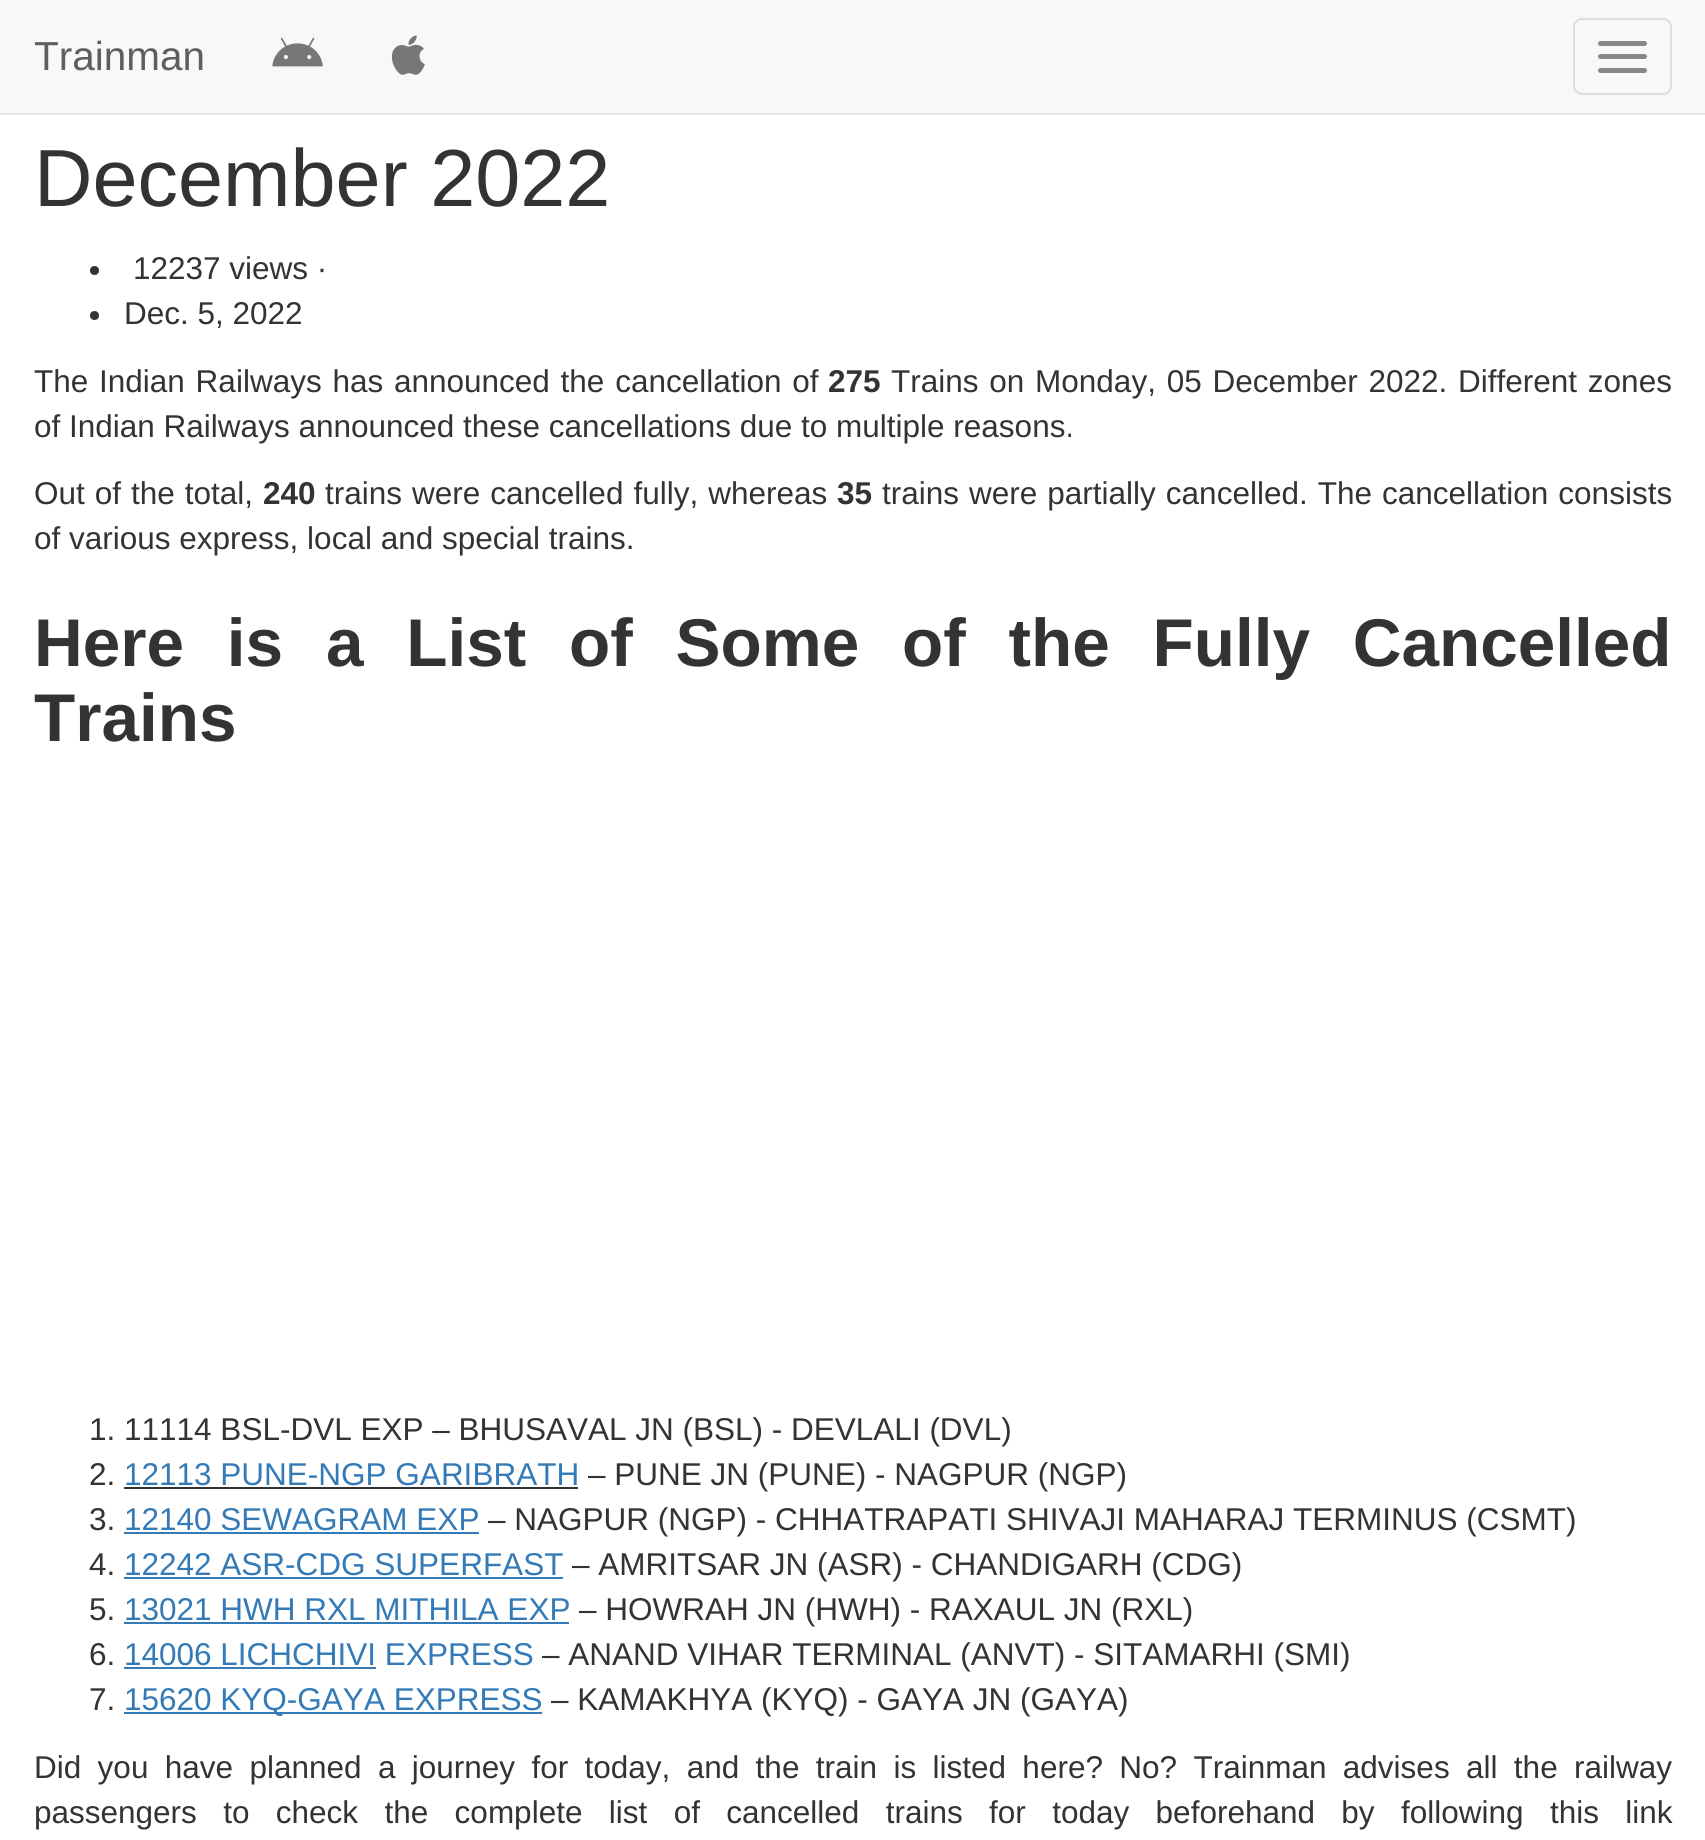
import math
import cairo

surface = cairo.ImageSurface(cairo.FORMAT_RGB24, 1705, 1840)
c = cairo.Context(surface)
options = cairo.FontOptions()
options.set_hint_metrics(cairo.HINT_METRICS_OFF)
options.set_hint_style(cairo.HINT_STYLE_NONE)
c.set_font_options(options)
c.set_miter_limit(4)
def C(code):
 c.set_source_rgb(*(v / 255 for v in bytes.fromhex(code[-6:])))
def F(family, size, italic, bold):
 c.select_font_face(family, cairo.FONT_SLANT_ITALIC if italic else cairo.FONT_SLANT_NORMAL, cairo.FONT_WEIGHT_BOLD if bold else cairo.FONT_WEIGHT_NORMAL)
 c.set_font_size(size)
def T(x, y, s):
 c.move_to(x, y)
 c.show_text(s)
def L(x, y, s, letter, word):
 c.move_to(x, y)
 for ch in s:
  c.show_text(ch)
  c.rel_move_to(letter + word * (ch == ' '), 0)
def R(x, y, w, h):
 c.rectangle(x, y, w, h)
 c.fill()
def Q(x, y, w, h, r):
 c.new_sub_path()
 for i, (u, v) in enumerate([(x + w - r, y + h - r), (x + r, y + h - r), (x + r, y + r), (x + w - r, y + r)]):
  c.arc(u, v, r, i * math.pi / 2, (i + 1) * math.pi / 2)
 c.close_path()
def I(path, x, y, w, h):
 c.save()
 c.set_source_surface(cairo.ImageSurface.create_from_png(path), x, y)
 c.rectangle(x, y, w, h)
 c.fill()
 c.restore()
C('ffffff')
c.paint()
C('f8f8f8')
R(0,0,1705,113)
C('e7e7e7')
R(0,113,1705,2)
F('Liberation Sans',40.5,0,0)
C('5e5e5e')
T(34,70,'Trainman')
I('1.png',272,37,51,30)
I('2.png',391,35,34,40)
Q(1574,19,97,75,8)
C('dddddd')
c.stroke()
C('888888')
Q(1598,41,49,5,2.5)
c.fill()
Q(1598,54,49,5,2.5)
c.fill()
Q(1598,68,49,5,2.5)
c.fill()
F('Liberation Sans',81,0,0)
C('333333')
T(34,206,'December 2022')
c.new_path()
c.arc(94.5,270.5,4.5,0,2 * math.pi)
c.fill()
F('Liberation Sans',31.5,0,0)
T(133,279,'12237 views ·')
c.new_path()
c.arc(94.5,315.5,4.5,0,2 * math.pi)
c.fill()
T(124,324,'Dec. 5, 2022')
L(34,392,'The Indian Railways has announced the cancellation of',0,2)
F('Liberation Sans',31.5,0,1)
T(828,392,'275')
F('Liberation Sans',31.5,0,0)
L(891,392,'Trains on Monday, 05 December 2022. Different zones',0,2)
T(34,437,'of Indian Railways announced these cancellations due to multiple reasons.')
L(34,504,'Out of the total,',0,1.25)
F('Liberation Sans',31.5,0,1)
T(263,504,'240')
F('Liberation Sans',31.5,0,0)
L(325,504,'trains were cancelled fully, whereas',0,1.25)
F('Liberation Sans',31.5,0,1)
T(837,504,'35')
F('Liberation Sans',31.5,0,0)
L(882,504,'trains were partially cancelled. The cancellation consists',0,1.25)
T(34,549,'of various express, local and special trains.')
F('Liberation Sans',67.5,0,1)
L(34,666,'Here is a List of Some of the Fully Cancelled',0,24)
T(34,741,'Trains')
F('Liberation Sans',31.5,0,0)
T(89,1440,'1. 11114 BSL-DVL EXP – BHUSAVAL JN (BSL) - DEVLALI (DVL)')
T(89,1485,'2.')
C('337ab7')
T(124,1485,'12113 PUNE-NGP GARIBRATH')
C('333333')
R(124,1487,454,2)
T(588,1485,'– PUNE JN (PUNE) - NAGPUR (NGP)')
T(89,1530,'3.')
C('337ab7')
T(124,1530,'12140 SEWAGRAM EXP')
R(124,1532,355,2)
C('333333')
T(488,1530,'– NAGPUR (NGP) - CHHATRAPATI SHIVAJI MAHARAJ TERMINUS (CSMT)')
T(89,1575,'4.')
C('337ab7')
T(124,1575,'12242 ASR-CDG SUPERFAST')
R(124,1577,439,2)
C('333333')
T(572,1575,'– AMRITSAR JN (ASR) - CHANDIGARH (CDG)')
T(89,1620,'5.')
C('337ab7')
T(124,1620,'13021 HWH RXL MITHILA EXP')
R(124,1622,445,2)
C('333333')
T(579,1620,'– HOWRAH JN (HWH) - RAXAUL JN (RXL)')
T(89,1665,'6.')
C('337ab7')
T(124,1665,'14006 LICHCHIVI EXPRESS')
R(124,1667,252,2)
C('333333')
T(542,1665,'– ANAND VIHAR TERMINAL (ANVT) - SITAMARHI (SMI)')
T(89,1710,'7.')
C('337ab7')
R(124,1712,418,2)
T(124,1710,'15620 KYQ-GAYA EXPRESS')
C('333333')
T(551,1710,'– KAMAKHYA (KYQ) - GAYA JN (GAYA)')
L(34,1778,'Did you have planned a journey for today, and the train is listed here? No? Trainman advises all the railway',0,7.6)
L(34,1823,'passengers to check the complete list of cancelled trains for today beforehand by following this link',0,17.6)
surface.write_to_png('o.png')
